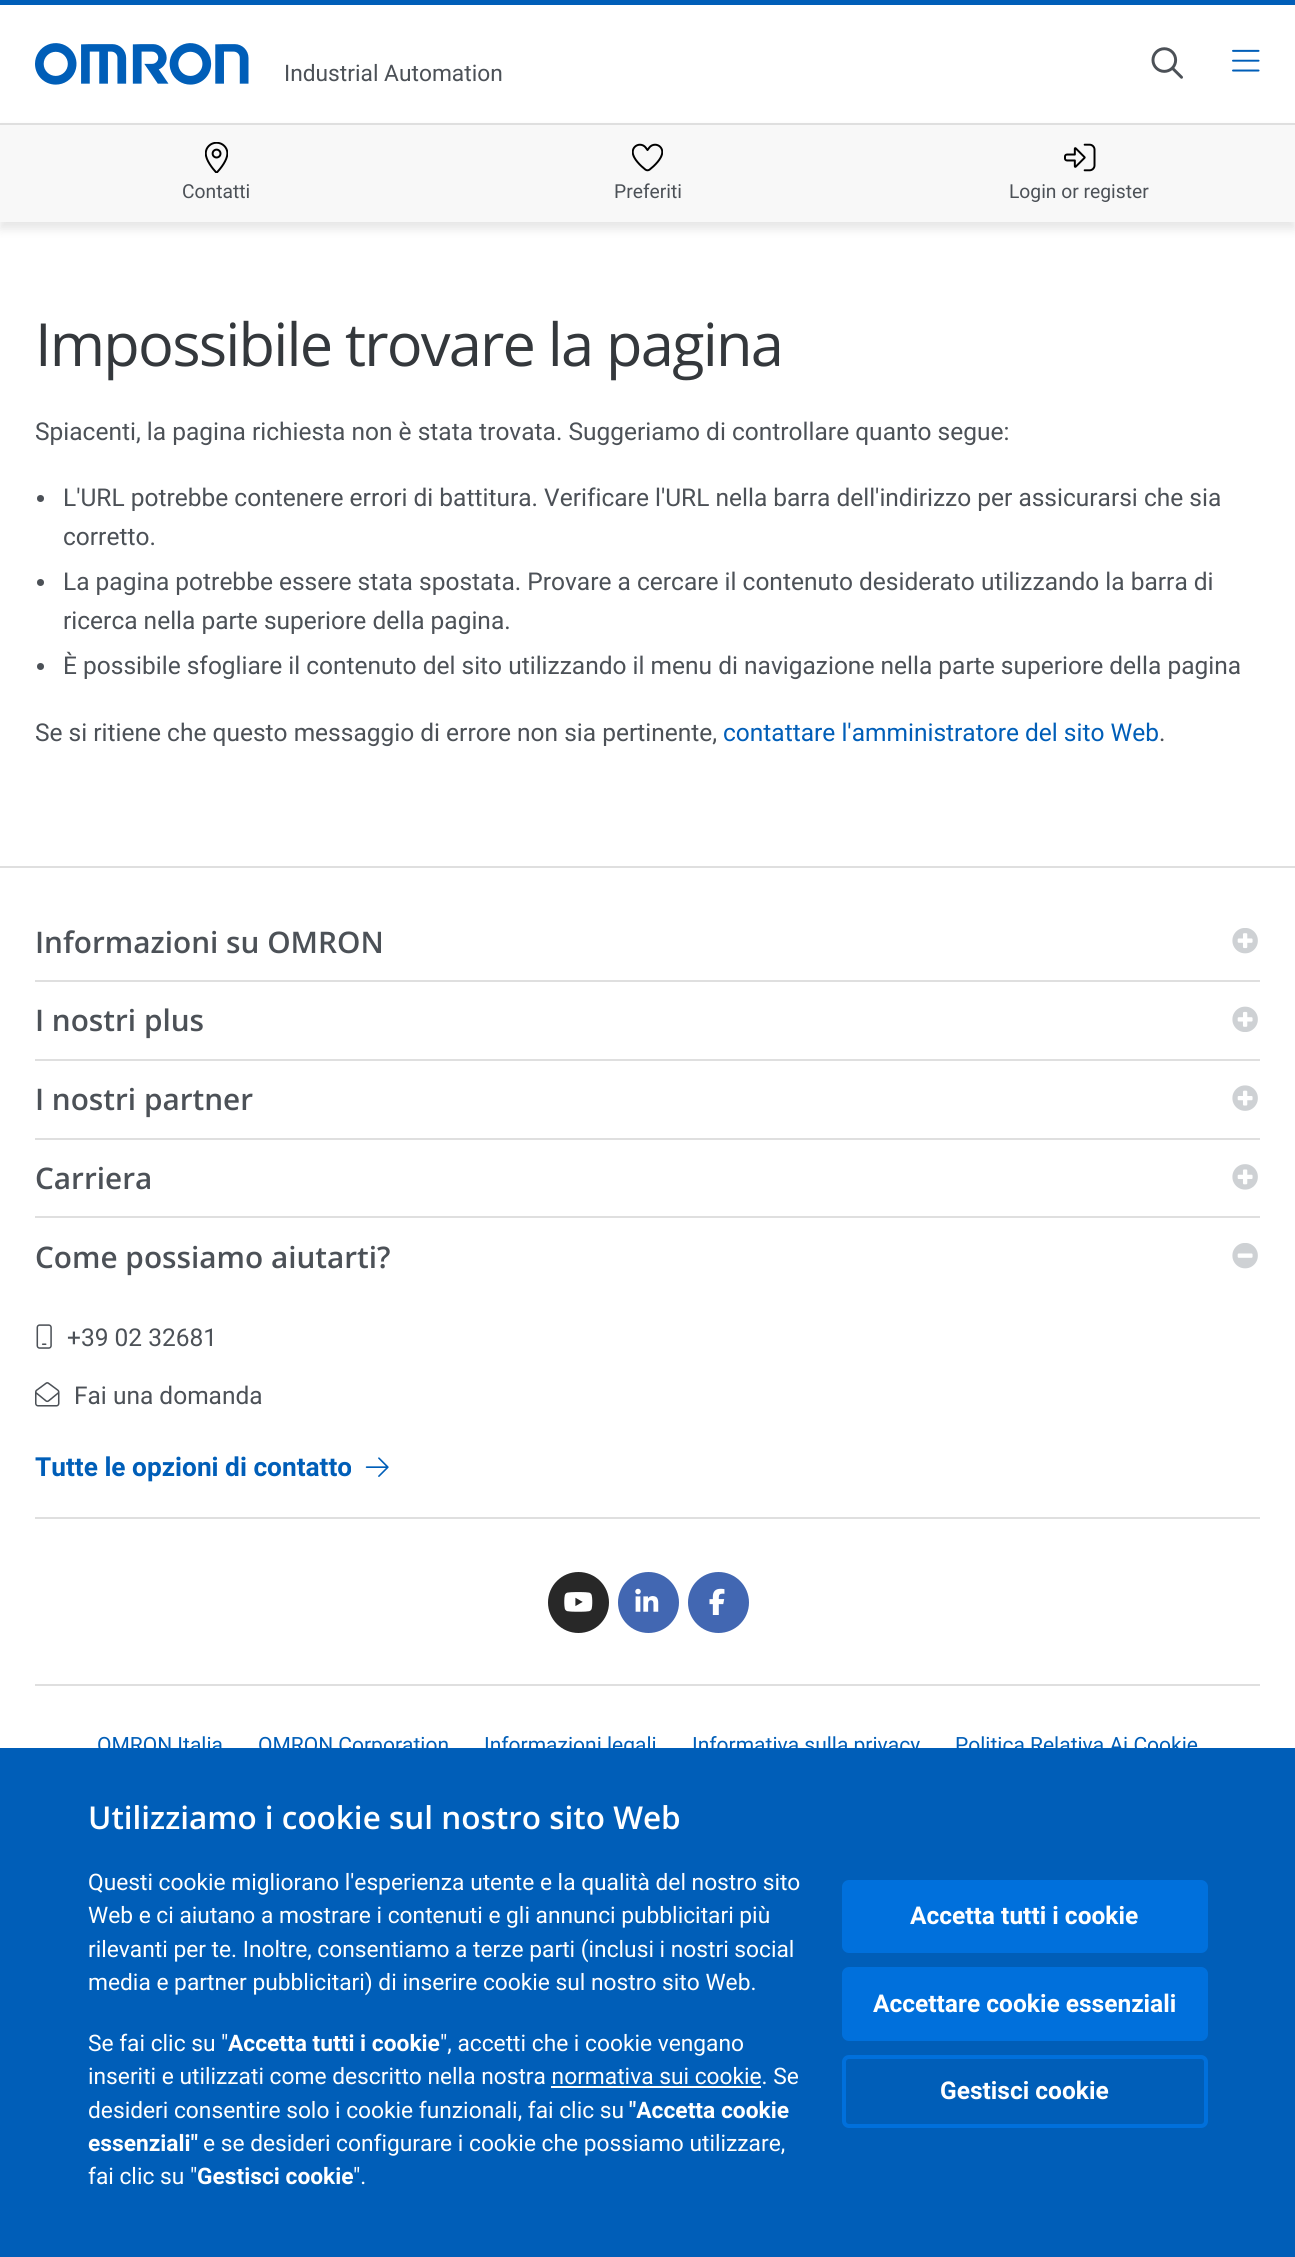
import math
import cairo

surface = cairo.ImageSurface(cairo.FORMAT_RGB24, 1295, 2257)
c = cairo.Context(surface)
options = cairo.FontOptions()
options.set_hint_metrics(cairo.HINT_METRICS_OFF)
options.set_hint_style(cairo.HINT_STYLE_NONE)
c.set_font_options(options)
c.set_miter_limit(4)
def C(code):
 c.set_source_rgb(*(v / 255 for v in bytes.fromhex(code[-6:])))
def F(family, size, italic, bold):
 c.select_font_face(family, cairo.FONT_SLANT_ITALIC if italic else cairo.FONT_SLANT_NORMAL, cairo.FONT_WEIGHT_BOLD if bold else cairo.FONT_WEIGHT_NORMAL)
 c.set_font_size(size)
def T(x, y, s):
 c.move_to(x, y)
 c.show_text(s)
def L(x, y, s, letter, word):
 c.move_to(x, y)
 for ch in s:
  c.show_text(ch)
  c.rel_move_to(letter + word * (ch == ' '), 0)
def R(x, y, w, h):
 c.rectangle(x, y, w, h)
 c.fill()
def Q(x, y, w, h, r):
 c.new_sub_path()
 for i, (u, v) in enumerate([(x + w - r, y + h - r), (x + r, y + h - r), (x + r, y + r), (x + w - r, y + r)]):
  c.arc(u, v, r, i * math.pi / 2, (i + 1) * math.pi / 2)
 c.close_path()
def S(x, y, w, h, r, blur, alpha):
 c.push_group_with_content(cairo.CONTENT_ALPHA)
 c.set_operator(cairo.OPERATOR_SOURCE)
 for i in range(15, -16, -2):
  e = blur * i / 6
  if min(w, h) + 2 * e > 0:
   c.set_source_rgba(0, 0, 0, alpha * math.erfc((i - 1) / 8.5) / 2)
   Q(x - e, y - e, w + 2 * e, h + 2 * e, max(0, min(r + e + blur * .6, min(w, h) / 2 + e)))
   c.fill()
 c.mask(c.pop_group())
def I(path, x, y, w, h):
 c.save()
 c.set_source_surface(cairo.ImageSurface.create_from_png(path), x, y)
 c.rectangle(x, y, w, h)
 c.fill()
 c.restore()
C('ffffff')
c.paint()
C('005eb8')
R(0,0,1295,5)
I('1.png',35,43,214,42)
F('Roboto',22.75,0,0)
C('4c5157')
T(284,81,'Industrial Automation')
I('2.png',1151,47,32,32)
I('3.png',1232,49,28,23)
C('000000')
S(0,130,1295,99,0,5,.1)
C('f8f8f8')
R(0,125,1295,97)
C('dfdfdf')
R(0,123,1295,2)
I('4.png',205,142,23,31)
F('Roboto',19.25,0,0)
C('4c5157')
T(182,198,'Contatti')
I('5.png',632,143,31,29)
T(614,198,'Preferiti')
I('6.png',1064,143,32,29)
T(1009,198,'Login or register')
F('Open Sans',59.5,0,0)
C('34383c')
L(35,366,'Impossibile trovare la pagina',-1.8,0)
F('Roboto',24.5,0,0)
C('4c5157')
T(35,440,'Spiacenti, la pagina richiesta non è stata trovata. Suggeriamo di controllare quanto segue:')
c.new_path()
c.arc(40.5,498.5,3.5,0,2 * math.pi)
c.fill()
T(63,506,'L\'URL potrebbe contenere errori di battitura. Verificare l\'URL nella barra dell\'indirizzo per assicurarsi che sia')
T(63,545,'corretto.')
c.new_path()
c.arc(40.5,582.5,3.5,0,2 * math.pi)
c.fill()
T(63,590,'La pagina potrebbe essere stata spostata. Provare a cercare il contenuto desiderato utilizzando la barra di')
T(63,629,'ricerca nella parte superiore della pagina.')
c.new_path()
c.arc(40.5,666.5,3.5,0,2 * math.pi)
c.fill()
T(63,674,'È possibile sfogliare il contenuto del sito utilizzando il menu di navigazione nella parte superiore della pagina')
T(35,741,'Se si ritiene che questo messaggio di errore non sia pertinente,')
C('005eb8')
T(723,741,'contattare l\'amministratore del sito Web')
C('4c5157')
T(1159,741,'.')
C('dfdfdf')
R(0,866,1295,2)
R(35,980,1225,2)
F('Open Sans SemiBold',29.75,0,0)
C('4c5157')
T(35,953,'Informazioni su OMRON')
I('7.png',1232,928,26,26)
C('dfdfdf')
R(35,1059,1225,2)
C('4c5157')
T(35,1031,'I nostri plus')
I('8.png',1232,1006,26,26)
C('dfdfdf')
R(35,1138,1225,2)
C('4c5157')
T(35,1110,'I nostri partner')
I('9.png',1232,1085,26,26)
C('dfdfdf')
R(35,1216,1225,2)
C('4c5157')
T(35,1189,'Carriera')
I('10.png',1232,1164,26,26)
C('dfdfdf')
R(35,1517,1225,2)
C('4c5157')
T(35,1268,'Come possiamo aiutarti?')
I('11.png',1232,1243,26,26)
I('12.png',36,1324,16,25)
F('Roboto',24.5,0,0)
T(67,1346,'+39 02 32681')
I('13.png',35,1382,25,25)
T(74,1404,'Fai una domanda')
F('Roboto',26.25,0,1)
C('005eb8')
T(35,1476,'Tutte le opzioni di contatto')
I('14.png',365,1457,24,20)
C('282828')
c.arc(578.5,1602.5,30.5,0,2 * math.pi)
c.fill()
I('15.png',564,1592,29,20)
C('4267b2')
c.arc(648.5,1602.5,30.5,0,2 * math.pi)
c.fill()
I('16.png',635,1588,24,24)
c.arc(718.5,1602.5,30.5,0,2 * math.pi)
c.fill()
I('17.png',709,1588,16,27)
C('dfdfdf')
R(35,1684,1225,2)
F('Roboto',21,0,0)
C('005eb8')
T(97,1752,'OMRON Italia')
T(258,1752,'OMRON Corporation')
T(484,1752,'Informazioni legali')
T(692,1752,'Informativa sulla privacy')
T(955,1752,'Politica Relativa Ai Cookie')
R(0,1748,1295,509)
F('Open Sans SemiBold',31.5,0,0)
C('ffffff')
T(88,1829,'Utilizziamo i cookie sul nostro sito Web')
F('Roboto',22.75,0,0)
T(88,1890,'Questi cookie migliorano l\'esperienza utente e la qualità del nostro sito')
T(88,1923,'Web e ci aiutano a mostrare i contenuti e gli annunci pubblicitari più')
T(88,1957,'rilevanti per te. Inoltre, consentiamo a terze parti (inclusi i nostri social')
T(88,1990,'media e partner pubblicitari) di inserire cookie sul nostro sito Web.')
T(88,2051,'Se fai clic su "')
F('Roboto',22.75,0,1)
T(228,2051,'Accetta tutti i cookie')
F('Roboto',22.75,0,0)
T(440,2051,'", accetti che i cookie vengano')
T(88,2084,'inseriti e utilizzati come descritto nella nostra normativa sui cookie. Se')
R(551,2086,210,2)
T(88,2118,'desideri consentire solo i cookie funzionali, fai clic su')
F('Roboto',22.75,0,1)
T(629,2118,'"Accetta cookie')
T(88,2151,'essenziali"')
F('Roboto',22.75,0,0)
T(203,2151,'e se desideri configurare i cookie che possiamo utilizzare,')
T(88,2184,'fai clic su "')
F('Roboto',22.75,0,1)
T(197,2184,'Gestisci cookie')
F('Roboto',22.75,0,0)
T(353,2184,'".')
C('0070dc')
Q(844,1882,362,69,5)
c.fill_preserve()
c.set_line_width(4)
c.stroke()
F('Roboto',24.5,0,1)
C('ffffff')
T(910,1924,'Accetta tutti i cookie')
C('0070dc')
Q(844,1969,362,70,5)
c.fill_preserve()
c.stroke()
C('ffffff')
T(873,2012,'Accettare cookie essenziali')
Q(844,2057,362,69,5)
C('0070dc')
c.stroke()
C('ffffff')
T(940,2099,'Gestisci cookie')
surface.write_to_png('o.png')
